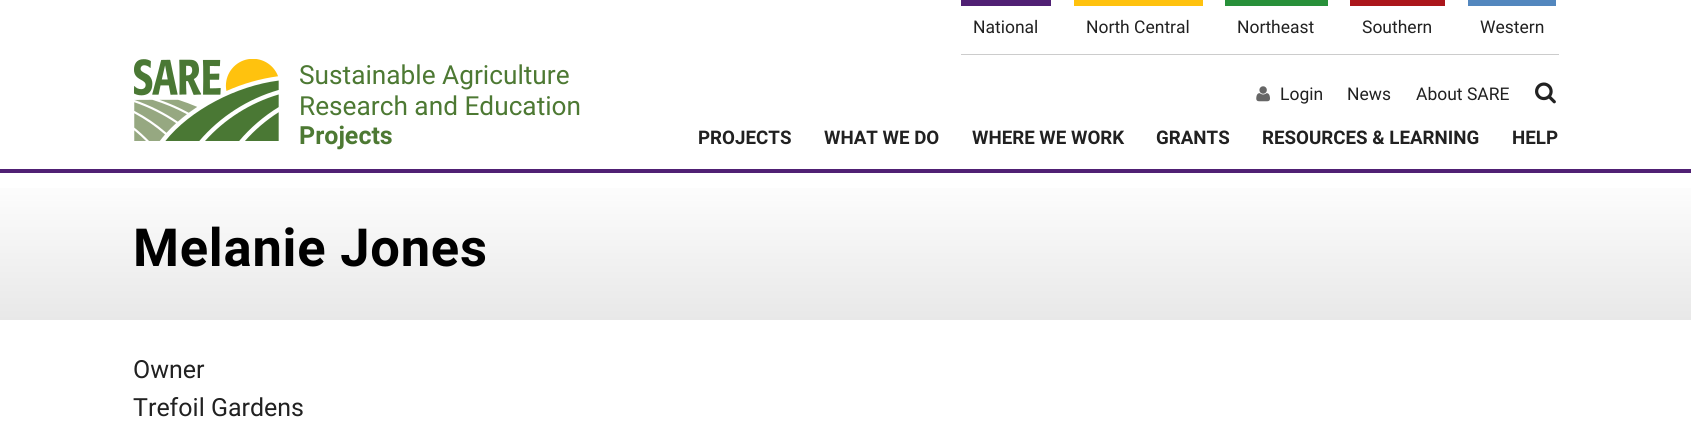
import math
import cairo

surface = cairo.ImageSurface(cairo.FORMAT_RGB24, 1691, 448)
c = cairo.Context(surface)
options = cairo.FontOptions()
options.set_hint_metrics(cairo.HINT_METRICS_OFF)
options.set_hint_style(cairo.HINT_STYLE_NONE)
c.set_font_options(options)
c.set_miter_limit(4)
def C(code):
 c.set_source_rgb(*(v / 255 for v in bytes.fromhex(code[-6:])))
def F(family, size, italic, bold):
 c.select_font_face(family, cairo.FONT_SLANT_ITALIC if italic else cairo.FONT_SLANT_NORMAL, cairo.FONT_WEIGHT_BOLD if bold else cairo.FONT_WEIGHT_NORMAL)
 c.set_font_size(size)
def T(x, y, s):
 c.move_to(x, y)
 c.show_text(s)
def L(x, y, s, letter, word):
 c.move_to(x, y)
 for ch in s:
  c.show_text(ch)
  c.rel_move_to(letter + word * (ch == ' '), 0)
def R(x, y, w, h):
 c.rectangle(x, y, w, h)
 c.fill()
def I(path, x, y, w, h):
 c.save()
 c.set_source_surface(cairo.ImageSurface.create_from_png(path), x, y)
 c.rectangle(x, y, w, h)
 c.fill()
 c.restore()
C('ffffff')
c.paint()
C('502074')
R(0,169,1691,4)
C('cccccc')
R(961,54,598,1)
C('502074')
R(961,0,90,6)
F('Roboto',17.5,0,0)
C('212121')
T(973,33,'National')
C('ffc20e')
R(1074,0,129,6)
C('212121')
T(1086,33,'North Central')
C('28903a')
R(1225,0,103,6)
C('212121')
T(1237,33,'Northeast')
C('ab161b')
R(1350,0,95,6)
C('212121')
T(1362,33,'Southern')
C('5387be')
R(1468,0,88,6)
C('212121')
T(1480,33,'Western')
I('1.png',134,59,145,82)
F('Roboto',26.25,0,0)
C('4d7933')
T(299,84,'Sustainable Agriculture')
T(299,115,'Research and Education')
F('Roboto',25,0,1)
T(299,144,'Projects')
I('2.png',1256,86,14,16)
F('Roboto',17.5,0,0)
C('212121')
T(1280,100,'Login')
T(1347,100,'News')
T(1416,100,'About SARE')
I('3.png',1535,82,21,22)
F('Roboto',18.75,0,1)
T(698,144,'PROJECTS')
T(824,144,'WHAT WE DO')
T(972,144,'WHERE WE WORK')
T(1156,144,'GRANTS')
T(1262,144,'RESOURCES & LEARNING')
T(1512,144,'HELP')
gradient = cairo.LinearGradient(846,172,846,320)
gradient.add_color_stop_rgba(0,1,1,1,1)
gradient.add_color_stop_rgba(1,0.91,0.91,0.91,1)
c.set_source(gradient)
R(0,188,1691,132)
F('Roboto',52.5,0,1)
C('000000')
L(133,266,'Melanie Jones',.75,0)
F('Roboto',25,0,0)
C('212121')
T(133,378,'Owner')
T(133,416,'Trefoil Gardens')
surface.write_to_png('o.png')
